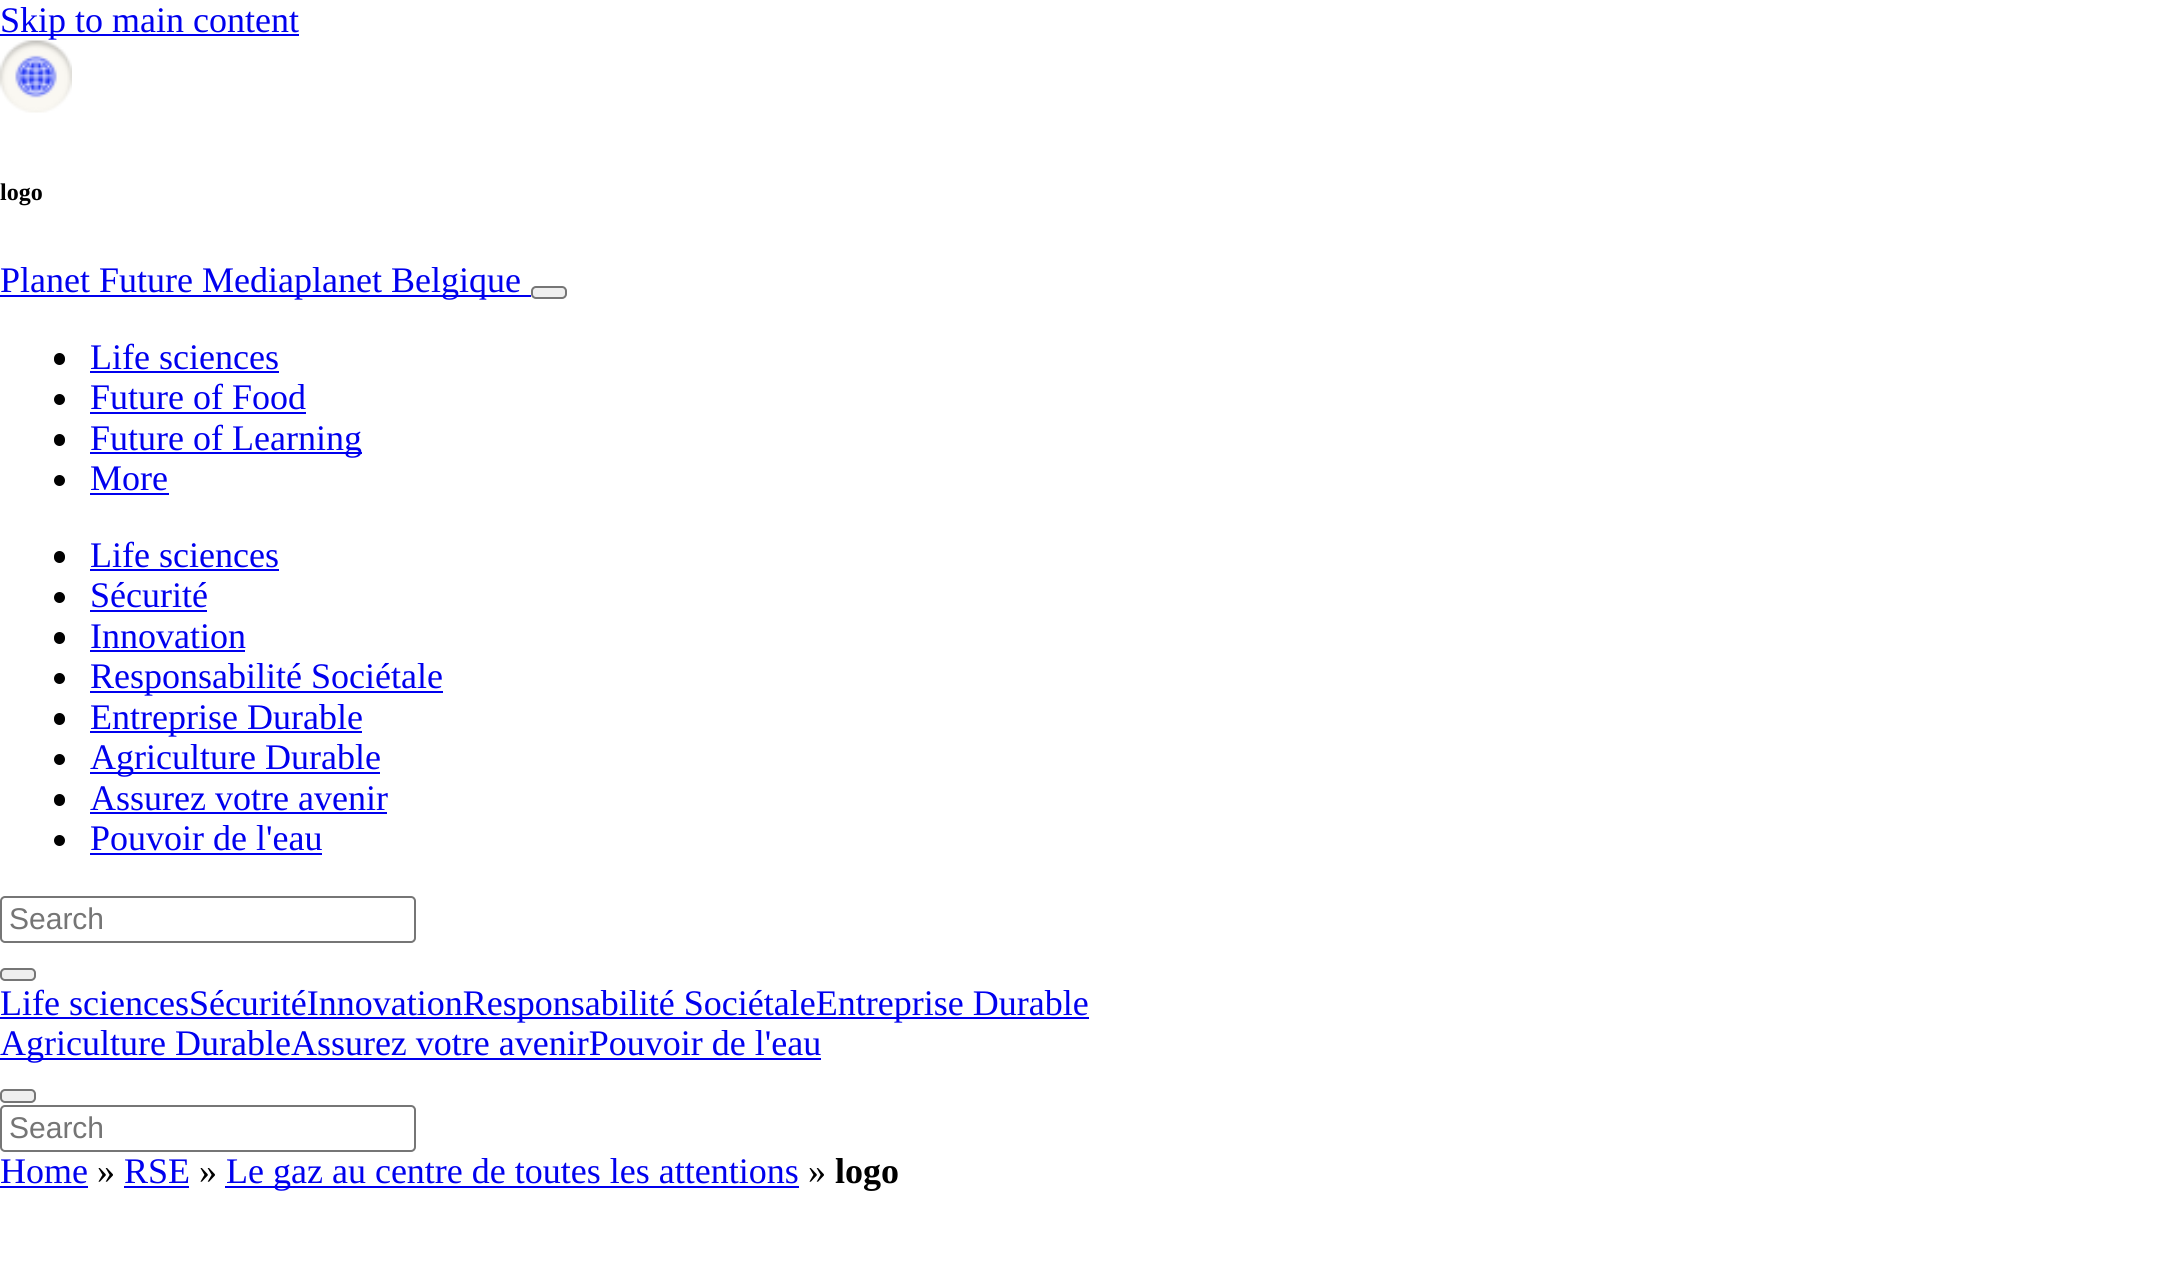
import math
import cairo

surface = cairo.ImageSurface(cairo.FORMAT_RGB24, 2170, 1267)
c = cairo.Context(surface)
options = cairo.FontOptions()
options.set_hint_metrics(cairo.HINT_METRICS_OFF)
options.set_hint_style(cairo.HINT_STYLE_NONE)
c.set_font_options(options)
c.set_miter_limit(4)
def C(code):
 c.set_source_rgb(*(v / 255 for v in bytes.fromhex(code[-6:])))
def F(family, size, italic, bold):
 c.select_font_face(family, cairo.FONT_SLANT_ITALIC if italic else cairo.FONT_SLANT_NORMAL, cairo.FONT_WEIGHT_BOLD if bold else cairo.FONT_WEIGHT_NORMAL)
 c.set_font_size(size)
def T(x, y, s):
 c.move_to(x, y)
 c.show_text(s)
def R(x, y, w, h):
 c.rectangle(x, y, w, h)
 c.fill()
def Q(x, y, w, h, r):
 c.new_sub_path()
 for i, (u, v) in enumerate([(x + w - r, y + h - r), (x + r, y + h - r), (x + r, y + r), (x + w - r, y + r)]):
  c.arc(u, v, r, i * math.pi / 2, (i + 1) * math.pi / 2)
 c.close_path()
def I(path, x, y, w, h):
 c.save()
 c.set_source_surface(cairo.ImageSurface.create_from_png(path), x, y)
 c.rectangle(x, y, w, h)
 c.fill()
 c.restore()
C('ffffff')
c.paint()
C('0000ee')
R(0,34,299,2)
F('Liberation Serif',36,0,0)
T(0,32,'Skip to main content')
I('1.png',0,40,72,73)
F('Liberation Serif',24,0,1)
C('000000')
T(0,200,'logo')
C('0000ee')
R(0,295,531,2)
F('Liberation Serif',36,0,0)
T(0,292,'Planet Future Mediaplanet Belgique')
C('efefef')
Q(532,287,34,11,4)
c.fill_preserve()
C('767676')
c.stroke()
C('000000')
Q(54,353,11,12,5.5)
c.fill()
C('0000ee')
T(90,369,'Life sciences')
R(90,371,189,2)
C('000000')
c.new_path()
c.arc(59.5,399.5,5.5,0,2 * math.pi)
c.fill()
C('0000ee')
T(90,409,'Future of Food')
R(90,412,216,2)
C('000000')
Q(54,434,11,12,5.5)
c.fill()
C('0000ee')
R(90,452,272,2)
T(90,450,'Future of Learning')
C('000000')
c.new_path()
c.arc(59.5,480.5,5.5,0,2 * math.pi)
c.fill()
C('0000ee')
T(90,490,'More')
R(90,493,79,2)
C('000000')
Q(54,551,11,12,5.5)
c.fill()
C('0000ee')
T(90,567,'Life sciences')
R(90,569,189,2)
C('000000')
c.new_path()
c.arc(59.5,597.5,5.5,0,2 * math.pi)
c.fill()
C('0000ee')
T(90,607,'Sécurité')
R(90,610,117,2)
C('000000')
Q(54,632,11,12,5.5)
c.fill()
C('0000ee')
T(90,648,'Innovation')
R(90,650,155,2)
C('000000')
c.new_path()
c.arc(59.5,678.5,5.5,0,2 * math.pi)
c.fill()
C('0000ee')
R(90,691,353,2)
T(90,688,'Responsabilité Sociétale')
C('000000')
Q(54,713,11,12,5.5)
c.fill()
C('0000ee')
R(90,731,272,2)
T(90,729,'Entreprise Durable')
C('000000')
c.new_path()
c.arc(59.5,759.5,5.5,0,2 * math.pi)
c.fill()
C('0000ee')
R(90,772,290,2)
T(90,769,'Agriculture Durable')
C('000000')
Q(54,794,11,12,5.5)
c.fill()
C('0000ee')
T(90,810,'Assurez votre avenir')
R(90,812,297,2)
C('000000')
c.new_path()
c.arc(59.5,840.5,5.5,0,2 * math.pi)
c.fill()
C('0000ee')
T(90,850,'Pouvoir de l\'eau')
R(90,853,232,2)
Q(1,897,414,45,4)
C('767676')
c.stroke()
F('Liberation Sans',30,0,0)
C('757575')
T(9,929,'Search')
C('efefef')
Q(1,969,34,11,4)
c.fill_preserve()
C('767676')
c.stroke()
C('0000ee')
R(0,1017,1089,2)
F('Liberation Serif',36,0,0)
T(0,1015,'Life sciencesSécuritéInnovationResponsabilité SociétaleEntreprise Durable')
R(0,1058,821,2)
T(0,1055,'Agriculture DurableAssurez votre avenirPouvoir de l\'eau')
C('efefef')
Q(1,1090,34,12,4)
c.fill_preserve()
C('767676')
c.stroke()
Q(1,1106,414,45,4)
c.stroke()
F('Liberation Sans',30,0,0)
C('757575')
T(9,1138,'Search')
F('Liberation Serif',36,0,0)
C('0000ee')
T(0,1183,'Home')
R(0,1186,88,2)
C('000000')
T(97,1183,'»')
C('0000ee')
T(124,1183,'RSE')
R(124,1186,65,2)
C('000000')
T(199,1183,'»')
C('0000ee')
R(225,1186,574,2)
T(226,1183,'Le gaz au centre de toutes les attentions')
C('000000')
T(808,1183,'»')
F('Liberation Serif',36,0,1)
T(835,1183,'logo')
surface.write_to_png('o.png')
